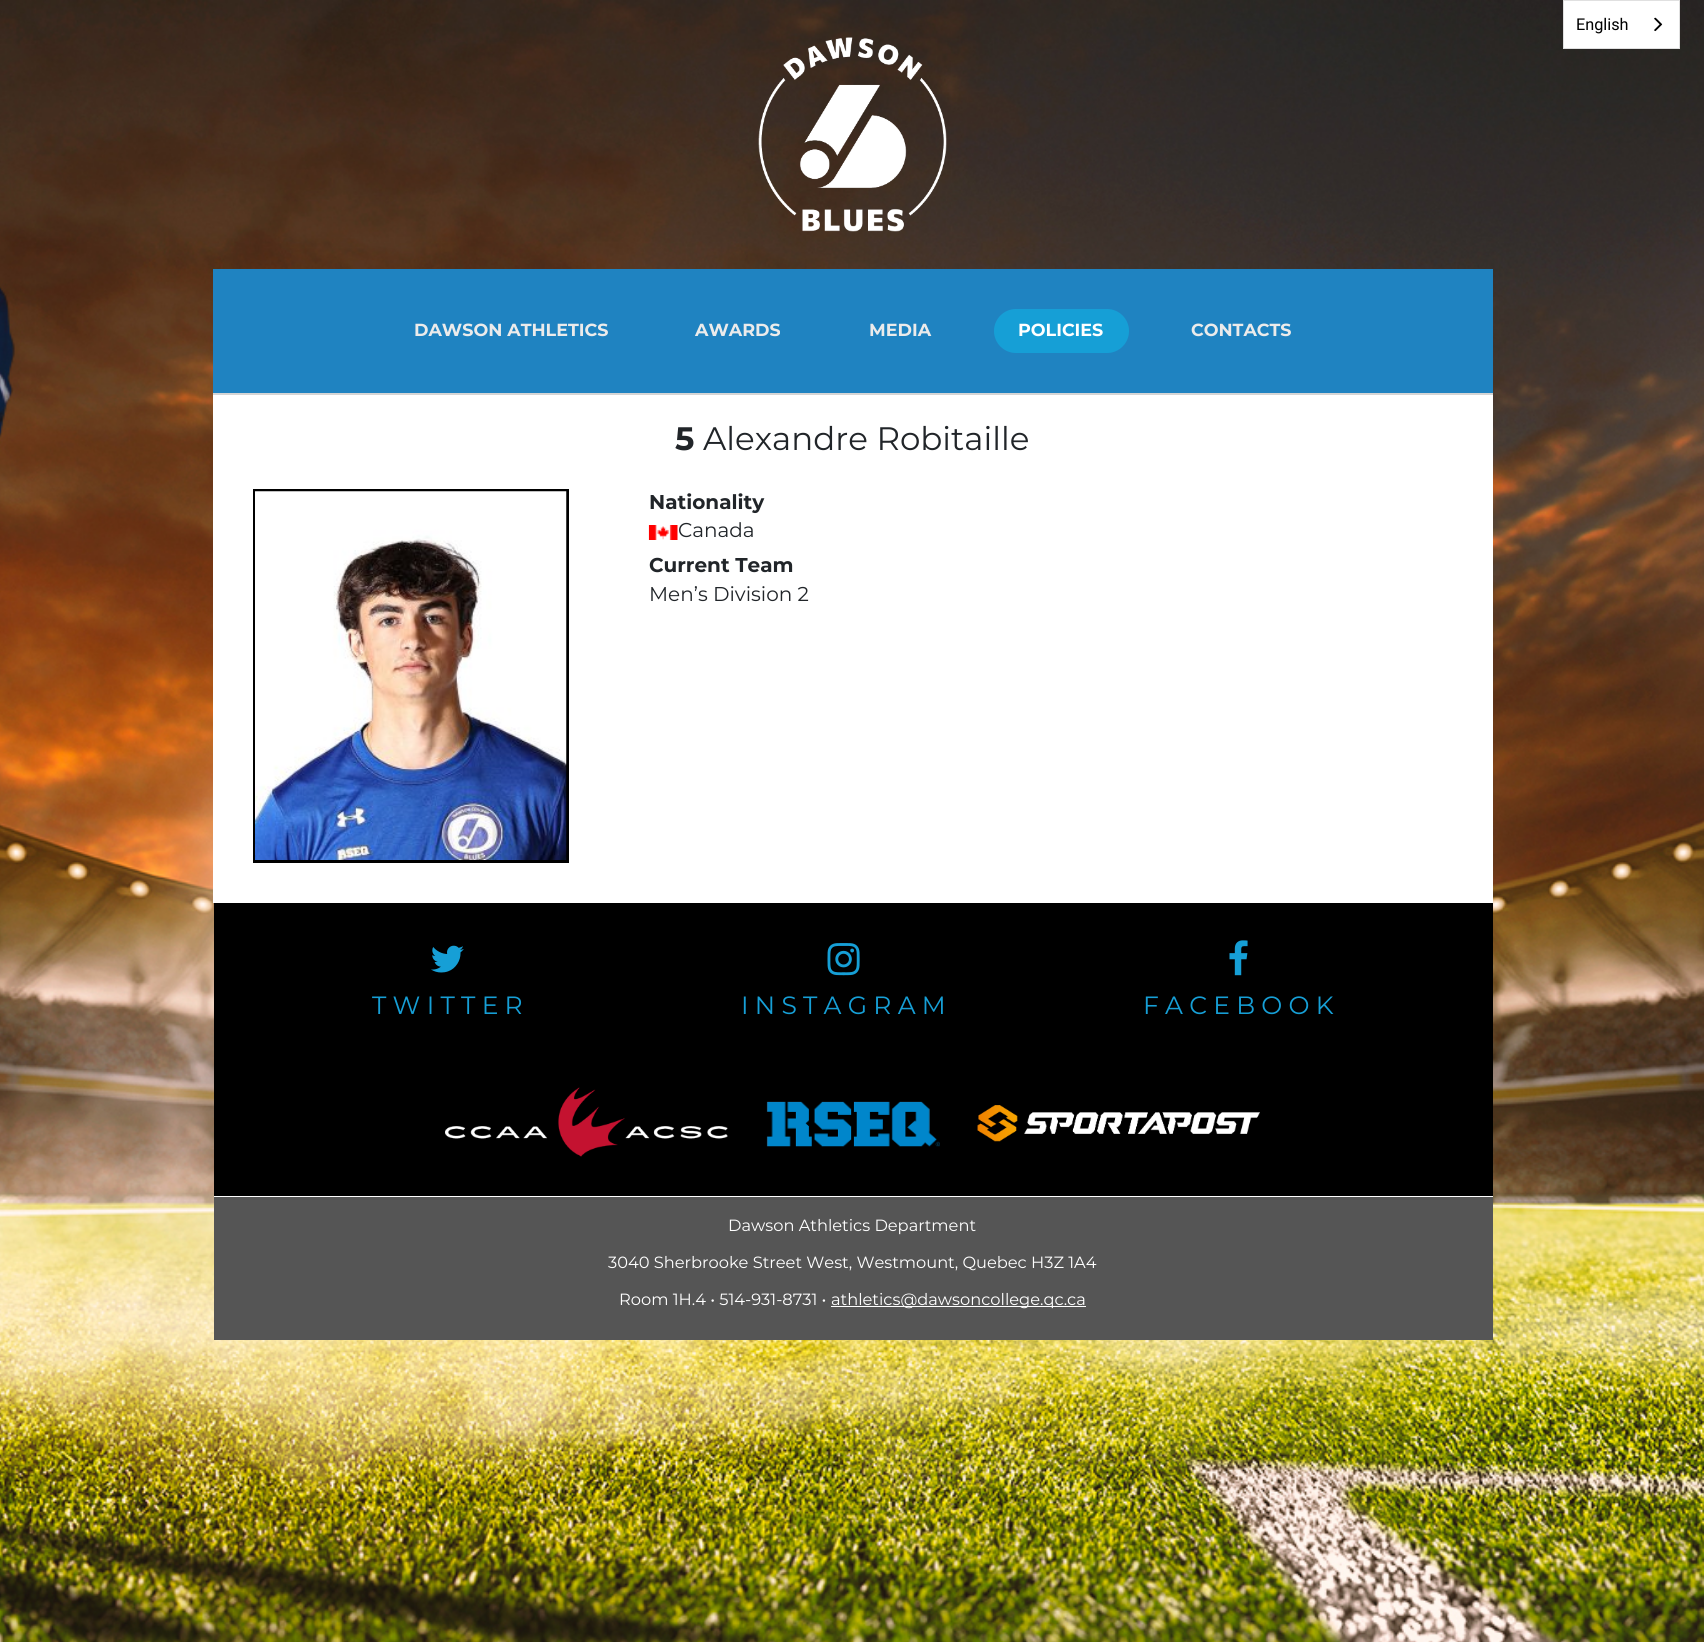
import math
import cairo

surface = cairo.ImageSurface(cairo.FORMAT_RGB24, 1704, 1642)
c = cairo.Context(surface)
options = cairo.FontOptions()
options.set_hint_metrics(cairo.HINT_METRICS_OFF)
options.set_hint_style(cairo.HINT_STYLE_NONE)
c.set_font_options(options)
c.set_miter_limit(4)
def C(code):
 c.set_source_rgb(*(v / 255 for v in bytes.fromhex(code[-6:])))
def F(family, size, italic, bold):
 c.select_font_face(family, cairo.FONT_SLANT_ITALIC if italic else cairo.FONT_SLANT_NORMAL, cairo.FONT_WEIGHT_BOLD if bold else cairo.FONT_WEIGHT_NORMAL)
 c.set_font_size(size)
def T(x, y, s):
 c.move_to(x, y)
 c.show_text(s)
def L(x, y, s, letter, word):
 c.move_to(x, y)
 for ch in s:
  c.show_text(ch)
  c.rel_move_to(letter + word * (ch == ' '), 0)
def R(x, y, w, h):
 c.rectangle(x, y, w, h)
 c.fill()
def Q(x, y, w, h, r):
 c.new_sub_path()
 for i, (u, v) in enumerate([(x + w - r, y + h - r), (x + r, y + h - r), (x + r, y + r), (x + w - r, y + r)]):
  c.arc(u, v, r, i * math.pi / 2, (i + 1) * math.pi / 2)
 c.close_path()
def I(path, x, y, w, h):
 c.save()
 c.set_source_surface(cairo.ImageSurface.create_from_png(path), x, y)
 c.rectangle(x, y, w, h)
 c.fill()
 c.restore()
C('ffffff')
c.paint()
I('1.png',0,0,1704,1642)
C('ffffff')
c.rectangle(1563.5,.5,116,48)
c.fill_preserve()
C('e0e0e0')
c.set_line_width(1)
c.stroke()
F('Roboto',16.25,0,0)
C('000000')
T(1576,30,'English')
I('2.png',1654,17,9,15)
I('3.png',758,37,189,195)
C('1f83c1')
R(213,269,1280,124)
C('d5d5d5')
R(213,393,1280,2)
F('Montserrat',17.5,0,1)
C('ebebeb')
T(414,336,'DAWSON ATHLETICS')
T(695,336,'AWARDS')
T(869,336,'MEDIA')
C('169fd6')
Q(994,309,135,44,22)
c.fill()
C('ffffff')
T(1018,336,'POLICIES')
C('ebebeb')
T(1191,336,'CONTACTS')
C('ffffff')
R(213,395,1280,508)
F('Montserrat',32.5,0,1)
C('212529')
T(675,450,'5')
F('Montserrat',32.5,0,0)
T(703,450,'Alexandre Robitaille')
c.rectangle(254.5,490.5,313,371)
C('000000')
c.set_line_width(3)
c.stroke()
I('4.png',255,491,312,369)
F('Montserrat',20,0,1)
C('212529')
T(649,509,'Nationality')
I('5.png',648,525,30,15)
F('Montserrat',20,0,0)
T(678,537,'Canada')
F('Montserrat',20,0,1)
T(649,572,'Current Team')
F('Montserrat',20,0,0)
T(649,601,'Men’s Division 2')
C('000000')
R(214,903,1279,293)
I('6.png',431,945,33,28)
F('Montserrat',25,0,0)
C('169fd6')
L(372,1014,'TWITTER',6.25,0)
I('7.png',827,943,33,33)
L(741,1014,'INSTAGRAM',6.25,0)
I('8.png',1229,940,19,36)
L(1143,1014,'FACEBOOK',6.25,0)
I('9.png',445,1087,283,70)
I('10.png',766,1101,174,46)
I('11.png',977,1105,283,37)
C('555555')
R(214,1197,1279,143)
C('ffffff')
R(214,1196,1279,1)
F('Montserrat',16.25,0,0)
T(728,1231,'Dawson Athletics Department')
T(608,1268,'3040 Sherbrooke Street West, Westmount, Quebec H3Z 1A4')
T(619,1305,'Room 1H.4 • 514-931-8731 •')
R(831,1306,255,1)
T(831,1305,'athletics@dawsoncollege.qc.ca')
surface.write_to_png('o.png')
